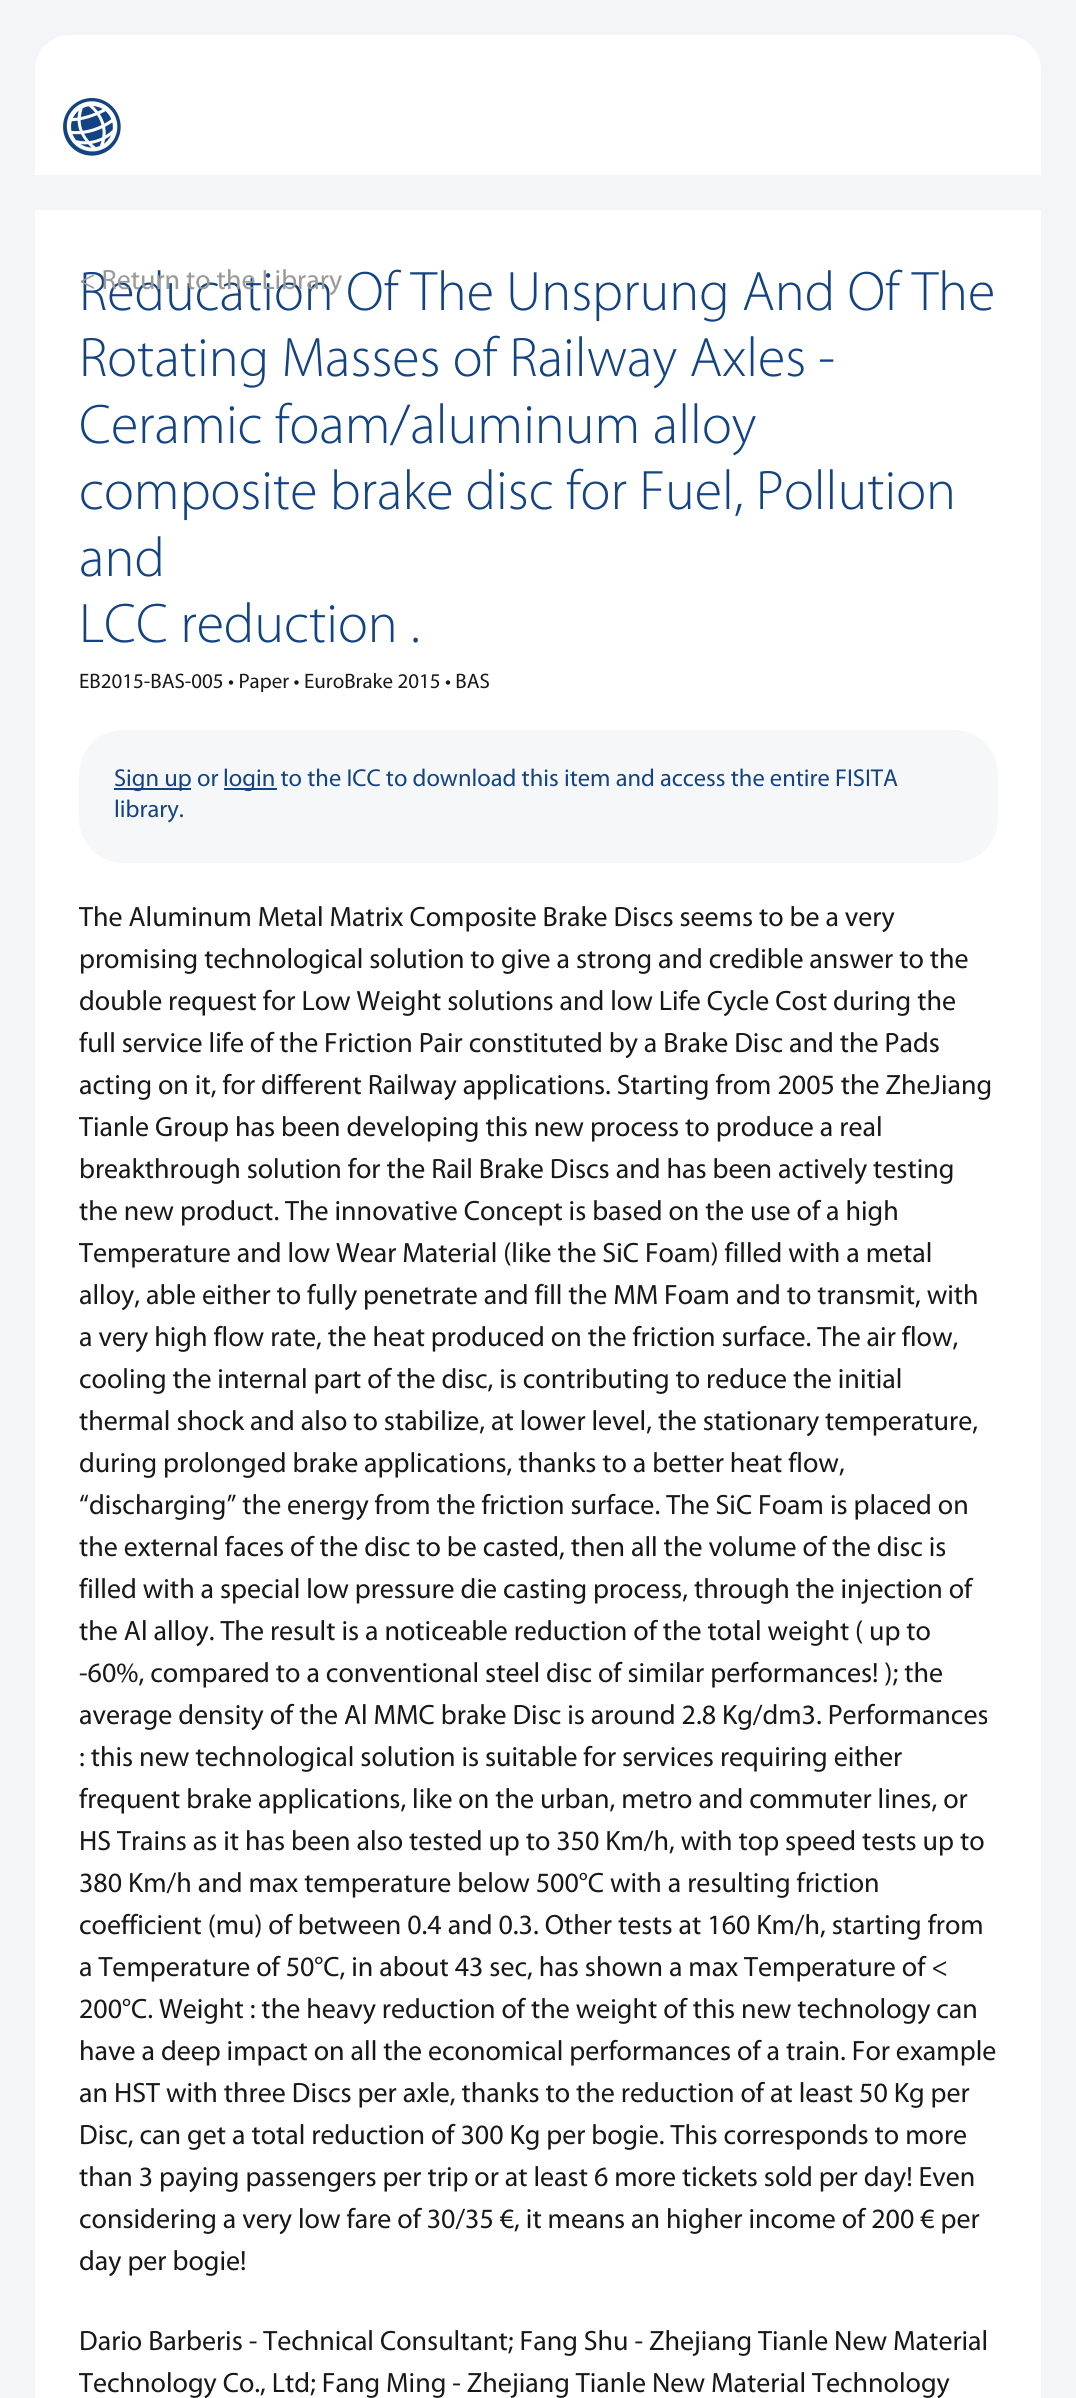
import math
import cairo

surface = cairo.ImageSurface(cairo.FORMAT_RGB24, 1076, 2398)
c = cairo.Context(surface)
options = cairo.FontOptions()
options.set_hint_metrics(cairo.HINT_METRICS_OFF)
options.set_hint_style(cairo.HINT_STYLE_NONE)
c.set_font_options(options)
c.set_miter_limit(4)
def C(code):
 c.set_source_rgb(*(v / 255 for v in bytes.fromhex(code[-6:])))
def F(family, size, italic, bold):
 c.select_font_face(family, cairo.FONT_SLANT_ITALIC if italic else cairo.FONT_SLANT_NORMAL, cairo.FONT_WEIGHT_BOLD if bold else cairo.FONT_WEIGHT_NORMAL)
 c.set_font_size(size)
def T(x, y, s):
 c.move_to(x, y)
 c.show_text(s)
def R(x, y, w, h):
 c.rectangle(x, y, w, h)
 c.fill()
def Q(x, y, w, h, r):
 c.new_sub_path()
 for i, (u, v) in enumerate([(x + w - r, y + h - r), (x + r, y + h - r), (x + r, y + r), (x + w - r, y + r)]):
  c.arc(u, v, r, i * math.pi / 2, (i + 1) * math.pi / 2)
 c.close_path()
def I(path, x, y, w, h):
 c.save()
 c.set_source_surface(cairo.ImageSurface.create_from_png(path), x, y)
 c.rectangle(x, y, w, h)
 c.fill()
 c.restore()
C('f3f5f8')
c.paint()
C('ffffff')
c.new_path()
c.move_to(70,35)
c.line_to(1006,35)
c.curve_to(1025.5,35,1041,50.5,1041,70)
c.line_to(1041,175)
c.line_to(35,175)
c.line_to(35,70)
c.curve_to(35,50.5,50.5,35,70,35)
c.close_path()
c.fill()
I('1.png',63,98,58,58)
R(35,210,1006,2188)
F('Myriad Light',56,0,0)
C('134382')
T(79,310,'Reducation Of The Unsprung And Of The')
T(79,376,'Rotating Masses of Railway Axles -')
T(79,443,'Ceramic foam/aluminum alloy')
T(79,509,'composite brake disc for Fuel, Pollution')
T(79,576,'and')
T(79,642,'LCC reduction .')
F('Myriad',21,0,0)
C('181818')
T(79,688,'EB2015-BAS-005 • Paper • EuroBrake 2015 • BAS')
F('Myriad',28,0,0)
C('999997')
T(79,289,'< Return to the Library')
C('f5f7f8')
Q(79,730,919,133,44)
c.fill()
C('134382')
R(114,788,77,2)
F('Myriad',24.5,0,0)
T(114,786,'Sign up or')
R(224,788,53,2)
T(223,786,'login to the ICC to download this item and access the entire FISITA')
T(114,817,'library.')
F('Myriad',28,0,0)
C('181818')
T(79,926,'The Aluminum Metal Matrix Composite Brake Discs seems to be a very')
T(79,968,'promising technological solution to give a strong and credible answer to the')
T(79,1010,'double request for Low Weight solutions and low Life Cycle Cost during the')
T(79,1052,'full service life of the Friction Pair constituted by a Brake Disc and the Pads')
T(79,1094,'acting on it, for different Railway applications. Starting from 2005 the ZheJiang')
T(79,1136,'Tianle Group has been developing this new process to produce a real')
T(79,1178,'breakthrough solution for the Rail Brake Discs and has been actively testing')
T(79,1220,'the new product. The innovative Concept is based on the use of a high')
T(79,1262,'Temperature and low Wear Material (like the SiC Foam) filled with a metal')
T(79,1304,'alloy, able either to fully penetrate and fill the MM Foam and to transmit, with')
T(79,1346,'a very high flow rate, the heat produced on the friction surface. The air flow,')
T(79,1388,'cooling the internal part of the disc, is contributing to reduce the initial')
T(79,1430,'thermal shock and also to stabilize, at lower level, the stationary temperature,')
T(79,1472,'during prolonged brake applications, thanks to a better heat flow,')
T(79,1514,'“discharging” the energy from the friction surface. The SiC Foam is placed on')
T(79,1556,'the external faces of the disc to be casted, then all the volume of the disc is')
T(79,1598,'filled with a special low pressure die casting process, through the injection of')
T(79,1640,'the Al alloy. The result is a noticeable reduction of the total weight ( up to')
T(79,1682,'-60%, compared to a conventional steel disc of similar performances! ); the')
T(79,1724,'average density of the Al MMC brake Disc is around 2.8 Kg/dm3. Performances')
T(79,1766,': this new technological solution is suitable for services requiring either')
T(79,1808,'frequent brake applications, like on the urban, metro and commuter lines, or')
T(79,1850,'HS Trains as it has been also tested up to 350 Km/h, with top speed tests up to')
T(79,1892,'380 Km/h and max temperature below 500°C with a resulting friction')
T(79,1934,'coefficient (mu) of between 0.4 and 0.3. Other tests at 160 Km/h, starting from')
T(79,1976,'a Temperature of 50°C, in about 43 sec, has shown a max Temperature of <')
T(79,2018,'200°C. Weight : the heavy reduction of the weight of this new technology can')
T(79,2060,'have a deep impact on all the economical performances of a train. For example')
T(79,2102,'an HST with three Discs per axle, thanks to the reduction of at least 50 Kg per')
T(79,2144,'Disc, can get a total reduction of 300 Kg per bogie. This corresponds to more')
T(79,2186,'than 3 paying passengers per trip or at least 6 more tickets sold per day! Even')
T(79,2228,'considering a very low fare of 30/35 €, it means an higher income of 200 € per')
T(79,2270,'day per bogie!')
T(79,2350,'Dario Barberis - Technical Consultant; Fang Shu - Zhejiang Tianle New Material')
T(79,2392,'Technology Co., Ltd; Fang Ming - Zhejiang Tianle New Material Technology')
surface.write_to_png('o.png')
